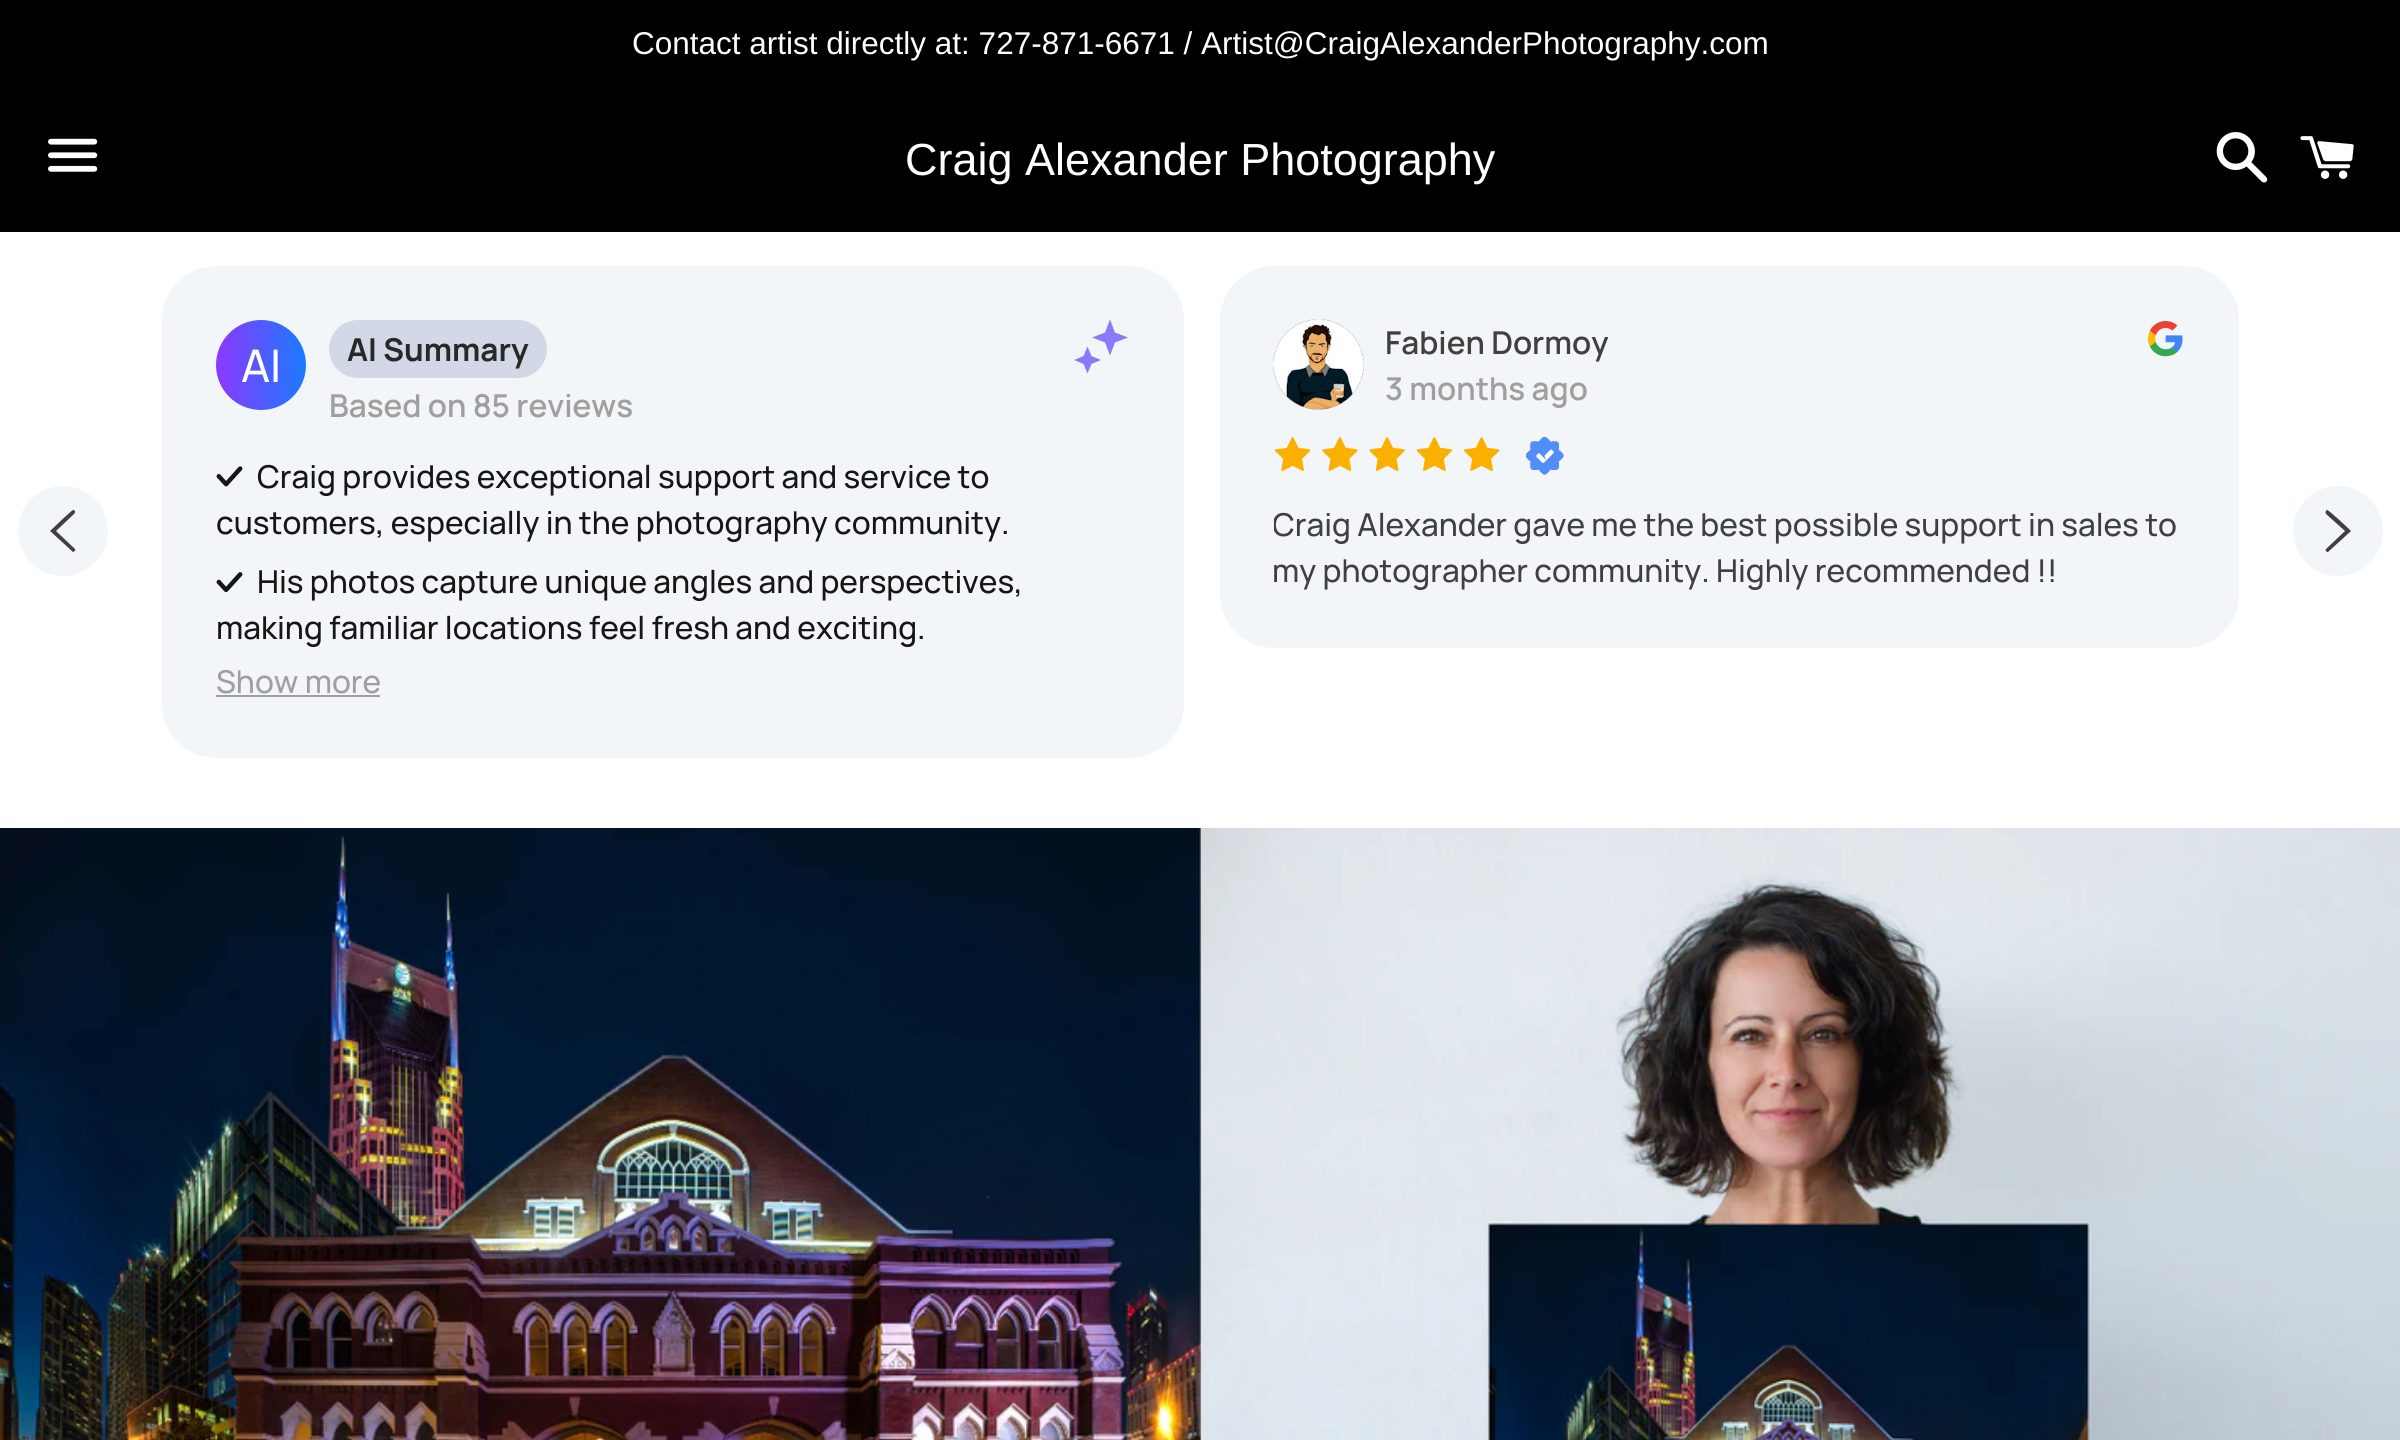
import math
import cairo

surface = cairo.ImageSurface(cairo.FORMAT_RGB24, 2400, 1440)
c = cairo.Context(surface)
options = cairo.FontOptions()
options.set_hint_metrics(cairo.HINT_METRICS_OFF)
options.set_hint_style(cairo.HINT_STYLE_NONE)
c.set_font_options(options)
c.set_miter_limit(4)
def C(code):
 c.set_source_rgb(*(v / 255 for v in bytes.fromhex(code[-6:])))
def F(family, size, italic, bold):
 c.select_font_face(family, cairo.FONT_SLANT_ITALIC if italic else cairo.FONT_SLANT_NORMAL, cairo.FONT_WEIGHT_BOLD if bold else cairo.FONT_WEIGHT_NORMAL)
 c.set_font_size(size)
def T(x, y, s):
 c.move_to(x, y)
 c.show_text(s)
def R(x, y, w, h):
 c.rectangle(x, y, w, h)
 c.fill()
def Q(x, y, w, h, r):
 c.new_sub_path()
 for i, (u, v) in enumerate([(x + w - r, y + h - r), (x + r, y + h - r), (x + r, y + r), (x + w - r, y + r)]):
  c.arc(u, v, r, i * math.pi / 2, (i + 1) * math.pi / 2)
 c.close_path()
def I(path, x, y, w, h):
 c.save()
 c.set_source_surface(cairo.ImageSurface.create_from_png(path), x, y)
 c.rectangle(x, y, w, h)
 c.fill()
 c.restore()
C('ffffff')
c.paint()
C('000000')
R(0,0,2400,232)
F('Liberation Sans',31.5,0,0)
C('ffffff')
T(632,54,'Contact artist directly at: 727-871-6671 / Artist@CraigAlexanderPhotography.com')
I('1.png',48,138,50,34)
F('Liberation Sans',45,0,0)
T(905,175,'Craig Alexander Photography')
I('2.png',2216,132,52,51)
I('3.png',2300,136,54,43)
C('f3f6f9')
c.arc(63,531,45,0,2 * math.pi)
c.fill()
C('404040')
c.new_path()
c.move_to(74,514)
c.curve_to(76,512,75,510,73,510)
c.curve_to(72,510,53,528,50,531)
c.line_to(73,552)
c.curve_to(74,552,76,550,75,549)
c.line_to(56,531)
c.close_path()
c.fill()
C('f3f6f9')
Q(162,266,1022,492,54)
c.fill()
gradient = cairo.LinearGradient(216,365,306,365)
gradient.add_color_stop_rgba(0,0.553,0.22,1,1)
gradient.add_color_stop_rgba(1,0.098,0.482,1,1)
c.set_source(gradient)
c.arc(261,365,45,0,2 * math.pi)
c.fill()
F('Manrope Medium',45,0,0)
C('ffffff')
T(241,382,'AI')
C('d3d8e7')
Q(329,320,218,58,29)
c.fill()
F('Manrope',31.5,0,1)
C('282828')
T(347,361,'AI Summary')
F('Manrope SemiBold',31.5,0,0)
C('9f9f9f')
T(329,417,'Based on 85 reviews')
C('8a79fa')
c.new_path()
c.move_to(1110,319.5)
c.line_to(1115,332.5)
c.line_to(1128,337.5)
c.line_to(1115,342.5)
c.line_to(1110,355.5)
c.line_to(1105,342.5)
c.line_to(1092,337.5)
c.line_to(1105,332.5)
c.close_path()
c.fill()
c.new_path()
c.move_to(1087.5,346.5)
c.line_to(1091.5,356)
c.line_to(1101,360)
c.line_to(1091.5,364)
c.line_to(1087.5,373.5)
c.line_to(1083.5,364)
c.line_to(1074,360)
c.line_to(1083.5,356)
c.close_path()
c.fill()
I('4.png',216,466,27,21)
F('Manrope Medium',31.5,0,0)
C('161616')
T(257,488,'Craig provides exceptional support and service to')
T(216,534,'customers, especially in the photography community.')
I('5.png',216,572,27,21)
T(257,593,'His photos capture unique angles and perspectives,')
T(216,639,'making familiar locations feel fresh and exciting.')
C('9f9f9f')
T(216,693,'Show more')
R(216,695,164,2)
C('f3f6f9')
Q(1220,266,1019,382,54)
c.fill()
I('6.png',1273,319,91,91)
F('Manrope SemiBold',31.5,0,0)
C('404040')
T(1385,354,'Fabien Dormoy')
C('9f9f9f')
T(1385,400,'3 months ago')
I('7.png',2148,321,35,36)
I('8.png',1274,437,37,34)
I('9.png',1322,437,36,34)
I('10.png',1369,437,36,34)
I('11.png',1416,437,37,34)
I('8.png',1463,437,37,34)
I('12.png',1526,437,38,38)
c.save()
c.rectangle(1274,502,911,92)
c.clip()
F('Manrope Medium',31.5,0,0)
C('404040')
T(1272,536,'Craig Alexander gave me the best possible support in sales to')
c.restore()
F('Manrope Medium',31.5,0,0)
C('404040')
T(1272,582,'my photographer community. Highly recommended !!')
C('f3f6f9')
c.new_path()
c.arc(2338,531,45,0,2 * math.pi)
c.fill()
C('404040')
c.new_path()
c.move_to(2326,514)
c.curve_to(2325,512,2326,510,2327,510)
c.curve_to(2329,510,2348,528,2351,531)
c.line_to(2328,552)
c.curve_to(2326,552,2325,550,2326,549)
c.line_to(2345,531)
c.close_path()
c.fill()
I('13.png',0,828,1202,612)
I('14.png',1201,828,1199,612)
surface.write_to_png('o.png')
